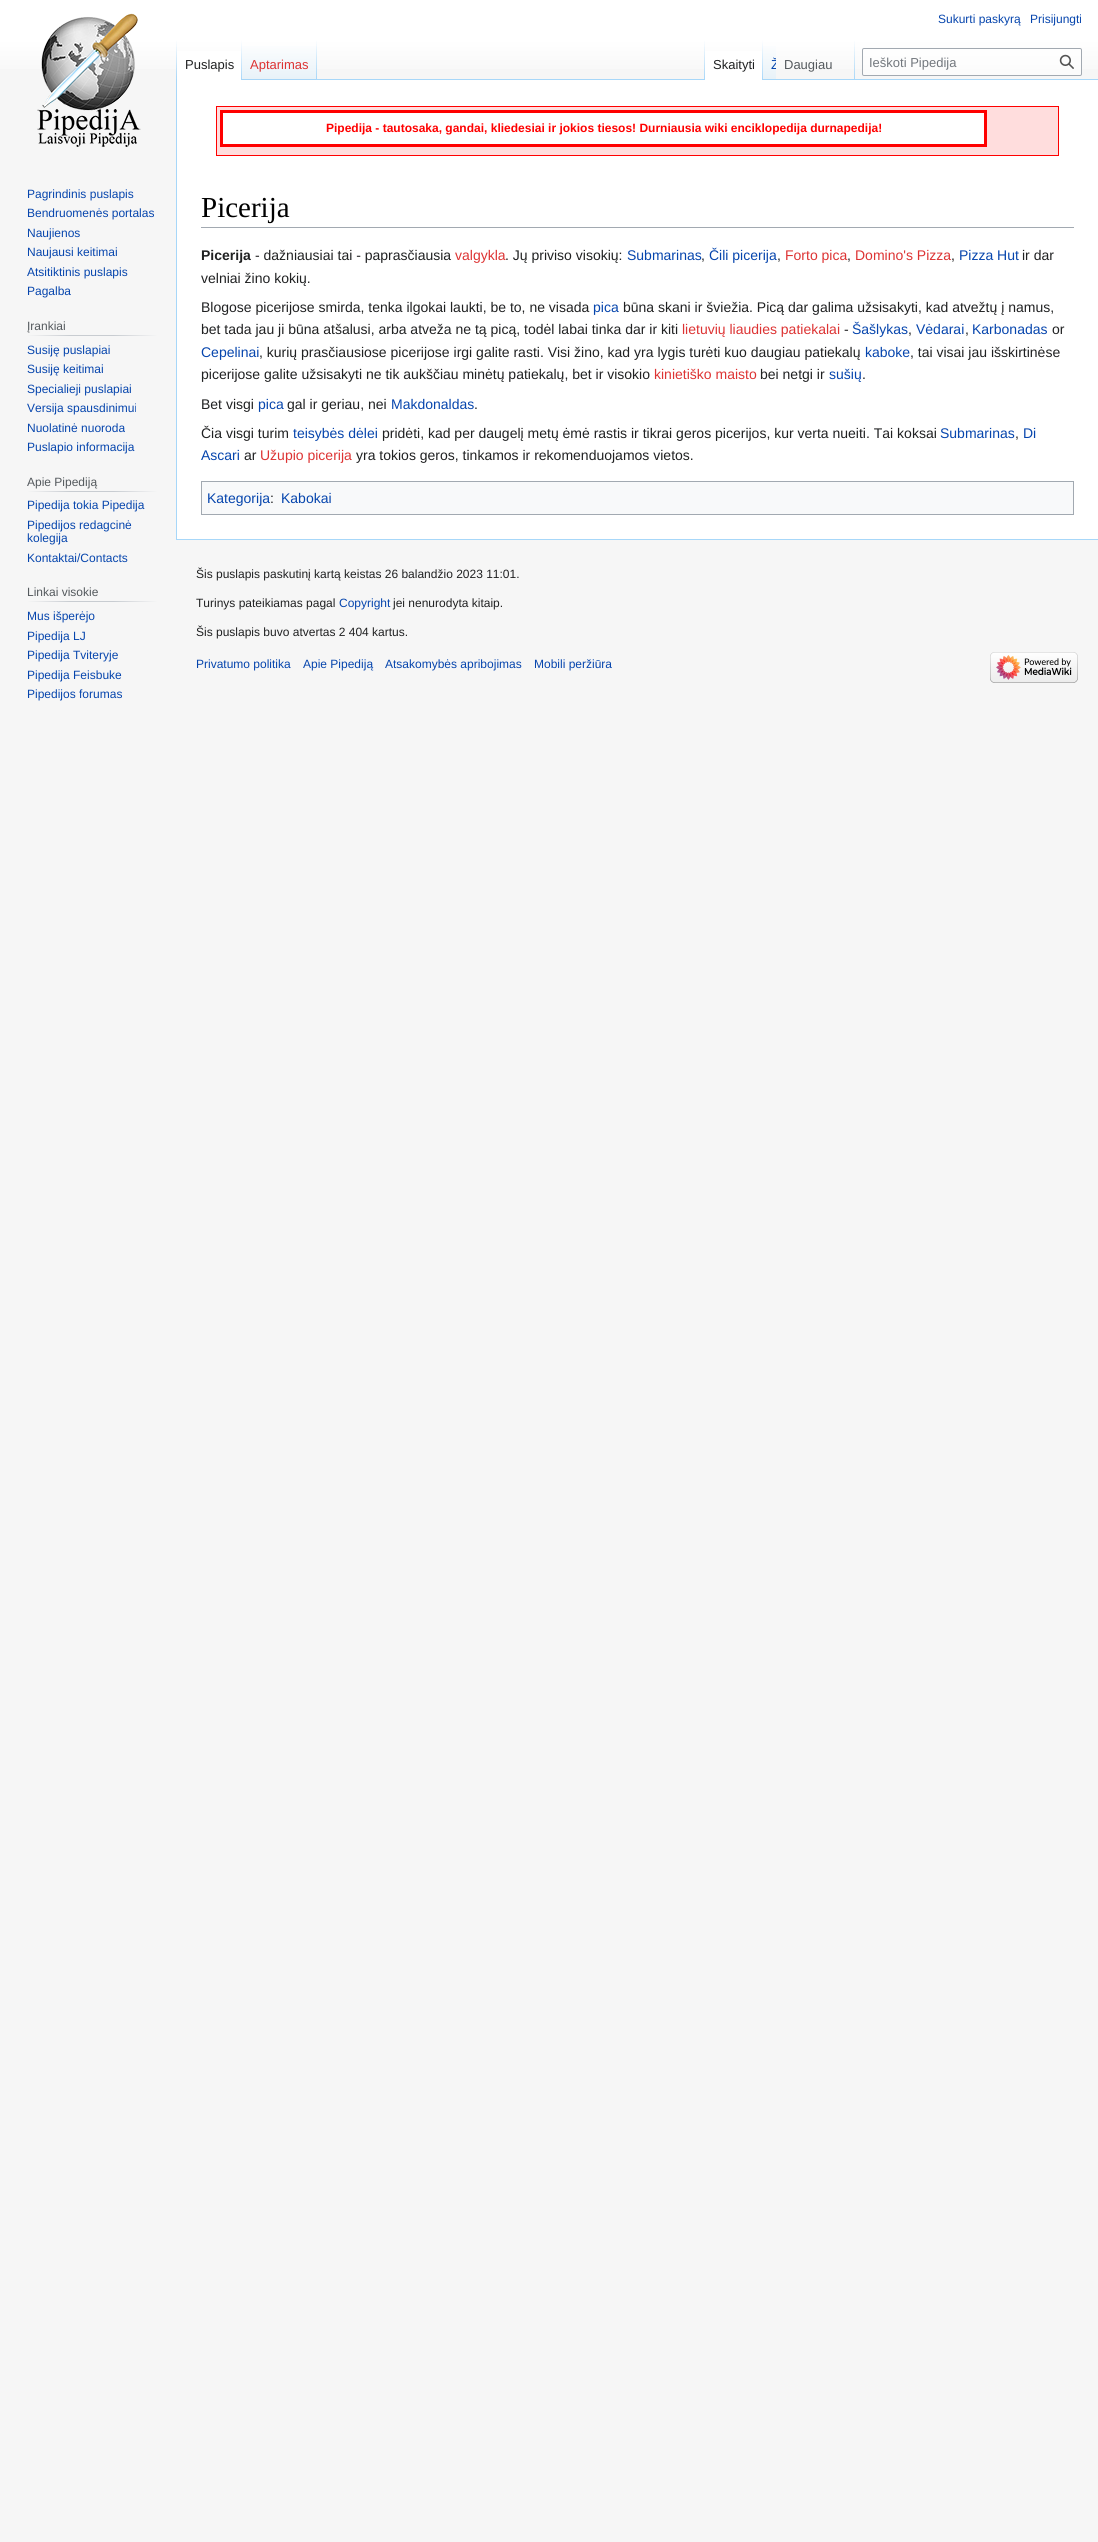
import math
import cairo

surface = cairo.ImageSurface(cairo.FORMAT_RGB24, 1098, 2542)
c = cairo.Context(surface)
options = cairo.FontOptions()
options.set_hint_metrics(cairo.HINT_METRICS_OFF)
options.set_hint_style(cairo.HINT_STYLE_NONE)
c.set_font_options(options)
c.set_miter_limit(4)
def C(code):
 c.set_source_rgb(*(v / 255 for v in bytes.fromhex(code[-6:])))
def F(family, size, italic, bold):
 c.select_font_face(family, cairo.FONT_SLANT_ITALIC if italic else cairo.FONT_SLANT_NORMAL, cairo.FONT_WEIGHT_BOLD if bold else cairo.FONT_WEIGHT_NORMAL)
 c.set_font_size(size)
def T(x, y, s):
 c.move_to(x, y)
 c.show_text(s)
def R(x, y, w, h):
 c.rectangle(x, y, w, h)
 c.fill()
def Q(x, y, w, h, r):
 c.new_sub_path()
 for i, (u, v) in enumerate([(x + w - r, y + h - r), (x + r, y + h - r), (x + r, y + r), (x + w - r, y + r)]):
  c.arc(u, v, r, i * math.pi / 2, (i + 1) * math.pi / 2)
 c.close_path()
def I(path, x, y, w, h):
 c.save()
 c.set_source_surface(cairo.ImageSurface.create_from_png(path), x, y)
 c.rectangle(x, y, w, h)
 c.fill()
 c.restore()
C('f6f6f6')
c.paint()
gradient = cairo.LinearGradient(549,0,549,80)
gradient.add_color_stop_rgba(.5,1,1,1,1)
gradient.add_color_stop_rgba(1,0.965,0.965,0.965,1)
c.set_source(gradient)
R(0,0,1098,69)
F('Liberation Sans',12,0,0)
C('0645ad')
T(938,23,'Sukurti paskyrą')
T(1030,23,'Prisijungti')
C('a7d7f9')
R(176,539,922,1)
R(176,79,1,461)
gradient = cairo.LinearGradient(177,40,177,80)
gradient.add_color_stop_rgba(0,0.655,0.843,0.976,0)
gradient.add_color_stop_rgba(1,0.655,0.843,0.976,1)
c.set_source(gradient)
R(176,40,1,40)
C('ffffff')
R(177,51,64,29)
gradient = cairo.LinearGradient(242,40,242,80)
gradient.add_color_stop_rgba(0,1,1,1,1)
gradient.add_color_stop_rgba(1,0.655,0.843,0.976,1)
c.set_source(gradient)
R(241,40,1,40)
F('Liberation Sans',13,0,0)
C('202122')
T(185,69,'Puslapis')
gradient = cairo.LinearGradient(280,80,280,40)
gradient.add_color_stop_rgba(0,0.467,0.757,0.965,1)
gradient.add_color_stop_rgba(.03,0.91,0.949,0.973,1)
gradient.add_color_stop_rgba(1,1,1,1,1)
c.set_source(gradient)
R(242,46,75,34)
gradient = cairo.LinearGradient(317,40,317,80)
gradient.add_color_stop_rgba(0,0.655,0.843,0.976,0)
gradient.add_color_stop_rgba(1,0.655,0.843,0.976,1)
c.set_source(gradient)
R(316,40,1,40)
C('dd3333')
T(250,69,'Aptarimas')
C('a7d7f9')
R(317,79,781,1)
gradient = cairo.LinearGradient(705,40,705,80)
gradient.add_color_stop_rgba(0,0.655,0.843,0.976,0)
gradient.add_color_stop_rgba(1,0.655,0.843,0.976,1)
c.set_source(gradient)
R(704,40,1,40)
C('ffffff')
R(705,51,57,29)
gradient = cairo.LinearGradient(763,40,763,80)
gradient.add_color_stop_rgba(0,1,1,1,1)
gradient.add_color_stop_rgba(1,0.655,0.843,0.976,1)
c.set_source(gradient)
R(762,40,1,40)
C('202122')
T(713,69,'Skaityti')
gradient = cairo.LinearGradient(770,80,770,40)
gradient.add_color_stop_rgba(0,0.467,0.757,0.965,1)
gradient.add_color_stop_rgba(.03,0.91,0.949,0.973,1)
gradient.add_color_stop_rgba(1,1,1,1,1)
c.set_source(gradient)
R(763,46,13,33)
c.save()
c.rectangle(763,40,13,40)
c.clip()
C('0645ad')
T(771,69,'Ž')
c.restore()
gradient = cairo.LinearGradient(855,40,855,80)
gradient.add_color_stop_rgba(0,0.655,0.843,0.976,0)
gradient.add_color_stop_rgba(1,0.655,0.843,0.976,1)
c.set_source(gradient)
R(854,40,1,40)
C('54595d')
T(784,69,'Daugiau')
c.set_source_rgba(1,1,1,0.5)
Q(862.5,48.5,219,27,1.5)
c.fill_preserve()
C('a2a9b1')
c.set_line_width(1)
c.stroke()
C('72777d')
T(869,67,'Ieškoti Pipedija')
I('1.png',1059,54,15,15)
I('2.png',37,13,104,134)
F('Liberation Sans',12,0,0)
C('0645ad')
T(27,198,'Pagrindinis puslapis')
T(27,217,'Bendruomenės portalas')
T(27,237,'Naujienos')
T(27,256,'Naujausi keitimai')
T(27,276,'Atsitiktinis puslapis')
T(27,295,'Pagalba')
gradient = cairo.LinearGradient(27,336,158,336)
gradient.add_color_stop_rgba(0,0.965,0.965,0.965,1)
gradient.add_color_stop_rgba(.33,0.784,0.8,0.82,1)
gradient.add_color_stop_rgba(.66,0.784,0.8,0.82,1)
gradient.add_color_stop_rgba(1,0.965,0.965,0.965,1)
c.set_source(gradient)
R(27,335,131,1)
C('54595d')
T(27,330,'Įrankiai')
C('0645ad')
T(27,354,'Susiję puslapiai')
T(27,373,'Susiję keitimai')
T(27,393,'Specialieji puslapiai')
T(27,412,'Versija spausdinimui')
T(27,432,'Nuolatinė nuoroda')
T(27,451,'Puslapio informacija')
gradient = cairo.LinearGradient(27,492,158,492)
gradient.add_color_stop_rgba(0,0.965,0.965,0.965,1)
gradient.add_color_stop_rgba(.33,0.784,0.8,0.82,1)
gradient.add_color_stop_rgba(.66,0.784,0.8,0.82,1)
gradient.add_color_stop_rgba(1,0.965,0.965,0.965,1)
c.set_source(gradient)
R(27,491,131,1)
C('54595d')
T(27,486,'Apie Pipediją')
C('0645ad')
T(27,509,'Pipedija tokia Pipedija')
T(27,529,'Pipedijos redagcinė')
T(27,542,'kolegija')
T(27,562,'Kontaktai/Contacts')
gradient = cairo.LinearGradient(27,602,158,602)
gradient.add_color_stop_rgba(0,0.965,0.965,0.965,1)
gradient.add_color_stop_rgba(.33,0.784,0.8,0.82,1)
gradient.add_color_stop_rgba(.66,0.784,0.8,0.82,1)
gradient.add_color_stop_rgba(1,0.965,0.965,0.965,1)
c.set_source(gradient)
R(27,601,131,1)
C('54595d')
T(27,596,'Linkai visokie')
C('0645ad')
T(27,620,'Mus išperėjo')
T(27,640,'Pipedija LJ')
T(27,659,'Pipedija Tviteryje')
T(27,679,'Pipedija Feisbuke')
T(27,698,'Pipedijos forumas')
C('ffffff')
R(177,80,921,459)
C('ffdddd')
c.rectangle(216.5,106.5,842,49)
c.fill_preserve()
C('ff0000')
c.stroke()
C('ffffff')
c.rectangle(221.5,111.5,764,34)
c.fill_preserve()
C('ff0000')
c.set_line_width(3)
c.stroke()
F('Liberation Sans',12,0,1)
T(326,132,'Pipedija - tautosaka, gandai, kliedesiai ir jokios tiesos! Durniausia wiki enciklopedija durnapedija!')
C('a2a9b1')
R(201,227,873,1)
F('Liberation Serif',29,0,0)
C('000000')
T(201,217,'Picerija')
F('Liberation Sans',14,0,1)
C('202122')
T(201,260,'Picerija')
F('Liberation Sans',14,0,0)
T(255,260,'- dažniausiai tai - paprasčiausia')
C('dd3333')
T(455,260,'valgykla')
C('202122')
T(505,260,'. Jų priviso visokių:')
C('0645ad')
T(627,260,'Submarinas')
C('202122')
T(701,260,',')
C('0645ad')
T(709,260,'Čili picerija')
C('202122')
T(777,260,',')
C('dd3333')
T(785,260,'Forto pica')
C('202122')
T(847,260,',')
C('dd3333')
T(855,260,'Domino\'s Pizza')
C('202122')
T(951,260,',')
C('0645ad')
T(959,260,'Pizza Hut')
C('202122')
T(1022,260,'ir dar')
T(201,283,'velniai žino kokių.')
T(201,312,'Blogose picerijose smirda, tenka ilgokai laukti, be to, ne visada')
C('0645ad')
T(593,312,'pica')
C('202122')
T(623,312,'būna skani ir šviežia. Picą dar galima užsisakyti, kad atvežtų į namus,')
T(201,334,'bet tada jau ji būna atšalusi, arba atveža ne tą picą, todėl labai tinka dar ir kiti')
C('dd3333')
T(682,334,'lietuvių liaudies patiekalai')
C('202122')
T(844,334,'-')
C('0645ad')
T(852,334,'Šašlykas')
T(916,334,'Vėdarai')
T(972,334,'Karbonadas')
C('202122')
T(1052,334,'or')
T(908,334,',')
T(965,334,',')
C('0645ad')
T(201,357,'Cepelinai')
C('202122')
T(259,357,', kurių prasčiausiose picerijose irgi galite rasti. Visi žino, kad yra lygis turėti kuo daugiau patiekalų')
C('0645ad')
T(865,357,'kaboke')
C('202122')
T(910,357,', tai visai jau išskirtinėse')
T(201,379,'picerijose galite užsisakyti ne tik aukščiau minėtų patiekalų, bet ir visokio')
C('dd3333')
T(654,379,'kinietiško maisto')
C('202122')
T(760,379,'bei netgi ir')
C('0645ad')
T(829,379,'sušių')
C('202122')
T(862,379,'.')
T(201,409,'Bet visgi')
C('0645ad')
T(258,409,'pica')
C('202122')
T(287,409,'gal ir geriau, nei')
C('0645ad')
T(391,409,'Makdonaldas')
C('202122')
T(474,409,'.')
T(201,438,'Čia visgi turim')
C('0645ad')
T(293,438,'teisybės dėlei')
C('202122')
T(382,438,'pridėti, kad per daugelį metų ėmė rastis ir tikrai geros picerijos, kur verta nueiti. Tai koksai')
C('0645ad')
T(940,438,'Submarinas')
C('202122')
T(1015,438,',')
C('0645ad')
T(1023,438,'Di')
T(201,460,'Ascari')
C('202122')
T(244,460,'ar')
C('dd3333')
T(260,460,'Užupio picerija')
C('202122')
T(356,460,'yra tokios geros, tinkamos ir rekomenduojamos vietos.')
C('f8f9fa')
c.rectangle(201.5,481.5,872,33)
c.fill_preserve()
C('a2a9b1')
c.set_line_width(1)
c.stroke()
C('0645ad')
T(207,503,'Kategorija')
C('202122')
T(270,503,':')
C('0645ad')
T(281,503,'Kabokai')
F('Liberation Sans',12,0,0)
C('202122')
T(196,578,'Šis puslapis paskutinį kartą keistas 26 balandžio 2023 11:01.')
T(196,607,'Turinys pateikiamas pagal')
C('0645ad')
T(339,607,'Copyright')
C('202122')
T(393,607,'jei nenurodyta kitaip.')
T(196,636,'Šis puslapis buvo atvertas 2 404 kartus.')
C('0645ad')
T(196,668,'Privatumo politika')
T(303,668,'Apie Pipediją')
T(385,668,'Atsakomybės apribojimas')
T(534,668,'Mobili peržiūra')
I('3.png',990,652,88,31)
surface.write_to_png('o.png')
